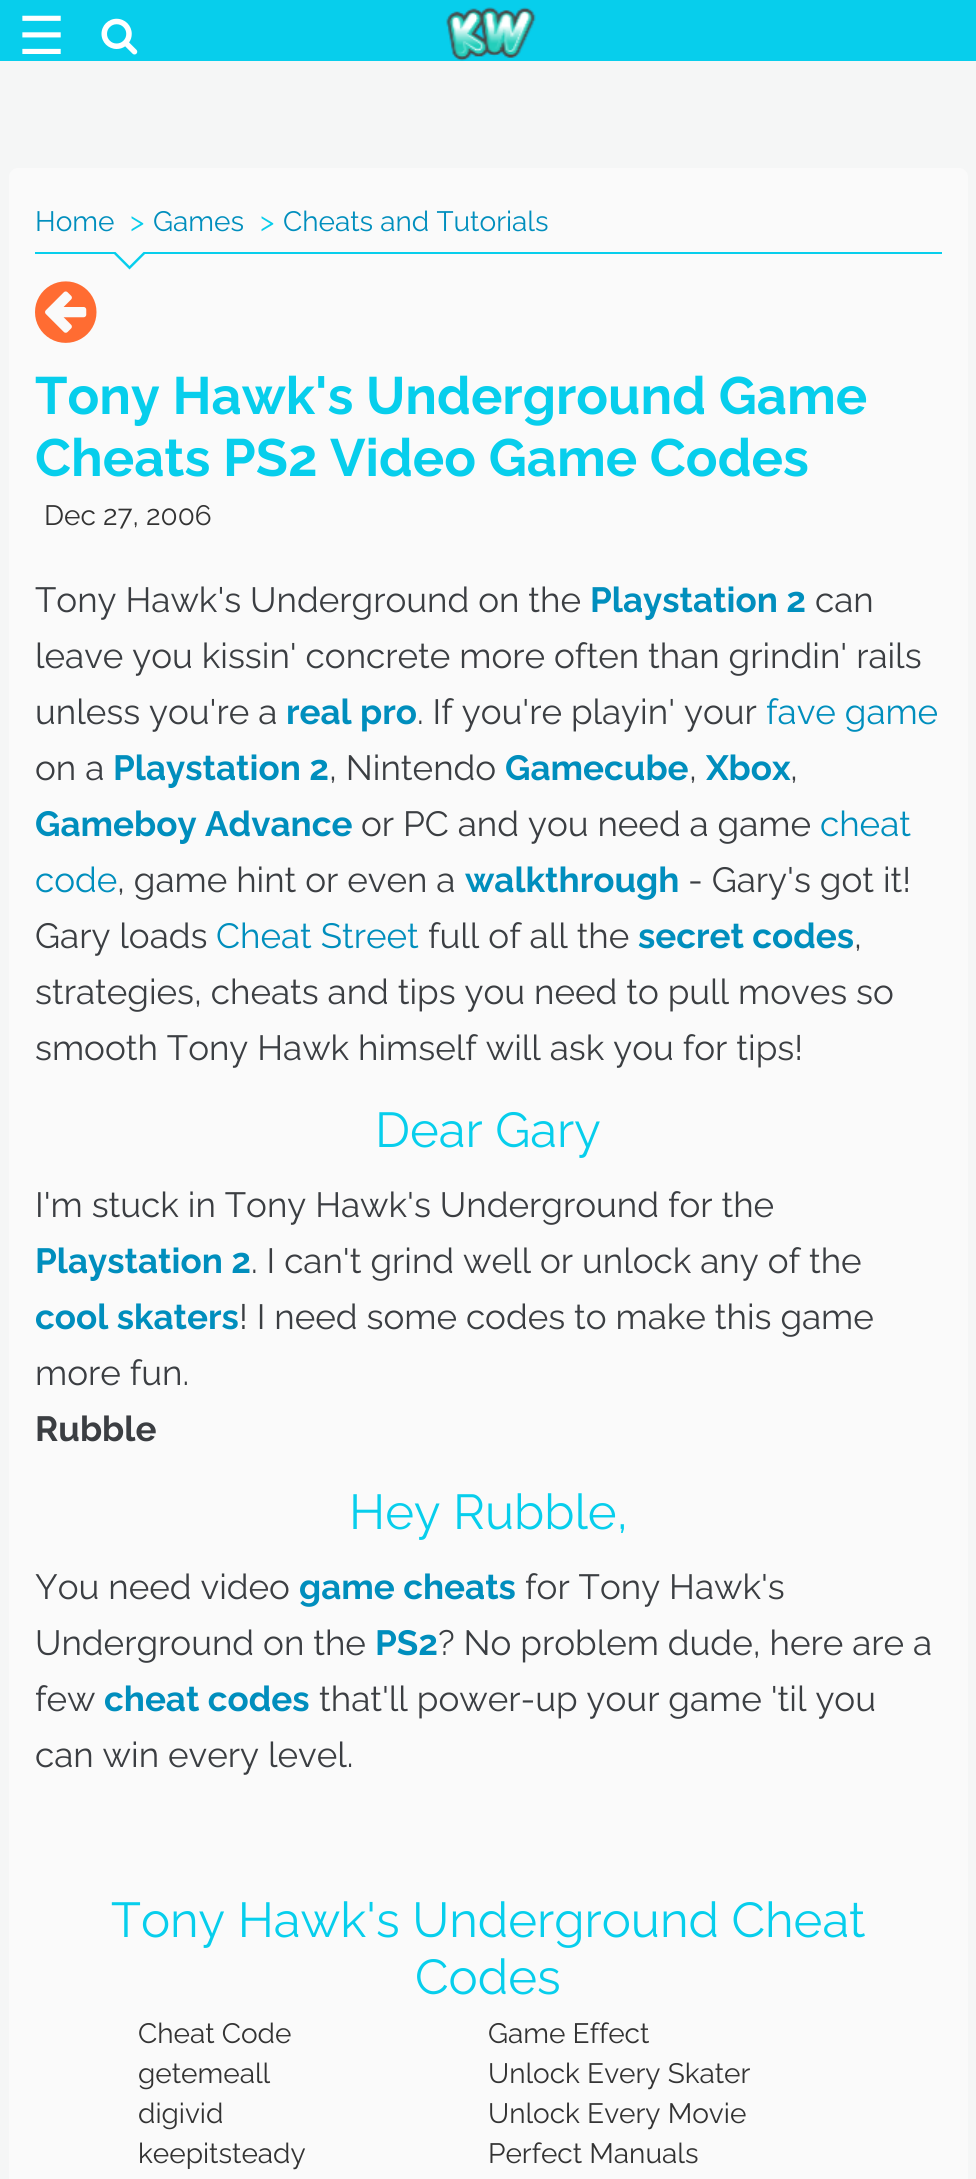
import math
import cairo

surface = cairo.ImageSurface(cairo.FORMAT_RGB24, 976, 2179)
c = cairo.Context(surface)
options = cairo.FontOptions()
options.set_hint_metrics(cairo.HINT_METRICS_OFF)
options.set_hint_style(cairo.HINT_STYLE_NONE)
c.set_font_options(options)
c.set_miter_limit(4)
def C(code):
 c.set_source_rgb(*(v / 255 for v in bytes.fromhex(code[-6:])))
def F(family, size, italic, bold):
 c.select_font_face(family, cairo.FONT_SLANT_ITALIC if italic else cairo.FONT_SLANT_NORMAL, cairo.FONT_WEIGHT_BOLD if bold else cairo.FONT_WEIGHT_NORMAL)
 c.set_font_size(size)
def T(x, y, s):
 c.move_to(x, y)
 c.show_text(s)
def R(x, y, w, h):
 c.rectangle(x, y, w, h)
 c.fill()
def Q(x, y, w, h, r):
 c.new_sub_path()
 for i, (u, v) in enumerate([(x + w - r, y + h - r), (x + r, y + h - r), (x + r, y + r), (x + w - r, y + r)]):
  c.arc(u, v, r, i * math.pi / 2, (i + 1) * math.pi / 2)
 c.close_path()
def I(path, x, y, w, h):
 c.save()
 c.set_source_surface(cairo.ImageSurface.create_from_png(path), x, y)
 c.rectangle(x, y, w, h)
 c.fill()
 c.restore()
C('f5f6f6')
c.paint()
C('07ceec')
R(0,0,976,61)
F('DejaVu Sans',52.5,0,0)
C('ffffff')
T(18,54,'☰')
I('1.png',101,18,37,37)
I('2.png',446,7,90,54)
C('fafafa')
Q(9,168,959,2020,9)
c.fill()
C('07ceec')
R(35,252,907,2)
F('Raleway',28,0,0)
C('008ebd')
T(35,231,'Home')
C('07ceec')
T(130,231,'>')
C('008ebd')
T(153,231,'Games')
C('07ceec')
T(260,231,'>')
C('008ebd')
T(283,231,'Cheats and Tutorials')
C('07ceec')
c.new_path()
c.move_to(112,252)
c.line_to(147,252)
c.line_to(129.5,269.5)
c.close_path()
c.fill()
C('fafafa')
c.new_path()
c.move_to(115.5,252)
c.line_to(143.5,252)
c.line_to(129.5,266)
c.close_path()
c.fill()
I('3.png',35,281,62,62)
F('Raleway',52.5,0,1)
C('07ceec')
T(35,414,'Tony Hawk\'s Underground Game')
T(35,476,'Cheats PS2 Video Game Codes')
F('Raleway',28,0,0)
C('333333')
T(44,525,'Dec 27, 2006')
F('Raleway',35,0,0)
C('3b3e42')
T(35,612,'Tony Hawk\'s Underground on the')
F('Raleway',35,0,1)
C('008ebd')
T(590,612,'Playstation 2')
F('Raleway',35,0,0)
C('3b3e42')
T(815,612,'can')
T(35,668,'leave you kissin\' concrete more often than grindin\' rails')
T(35,724,'unless you\'re a')
F('Raleway',35,0,1)
C('008ebd')
T(286,724,'real pro')
F('Raleway',35,0,0)
C('3b3e42')
T(417,724,'. If you\'re playin\' your')
C('008ebd')
T(766,724,'fave game')
C('3b3e42')
T(35,780,'on a')
F('Raleway',35,0,1)
C('008ebd')
T(113,780,'Playstation 2')
F('Raleway',35,0,0)
C('3b3e42')
T(329,780,', Nintendo')
F('Raleway',35,0,1)
C('008ebd')
T(505,780,'Gamecube')
F('Raleway',35,0,0)
C('3b3e42')
T(689,780,',')
F('Raleway',35,0,1)
C('008ebd')
T(706,780,'Xbox')
F('Raleway',35,0,0)
C('3b3e42')
T(790,780,',')
F('Raleway',35,0,1)
C('008ebd')
T(35,836,'Gameboy Advance')
F('Raleway',35,0,0)
C('3b3e42')
T(361,836,'or PC and you need a game')
C('008ebd')
T(820,836,'cheat')
T(35,892,'code')
C('3b3e42')
T(117,892,', game hint or even a')
F('Raleway',35,0,1)
C('008ebd')
T(465,892,'walkthrough')
F('Raleway',35,0,0)
C('3b3e42')
T(688,892,'- Gary\'s got it!')
T(35,948,'Gary loads')
C('008ebd')
T(216,948,'Cheat Street')
C('3b3e42')
T(428,948,'full of all the')
F('Raleway',35,0,1)
C('008ebd')
T(638,948,'secret codes')
F('Raleway',35,0,0)
C('3b3e42')
T(854,948,',')
T(35,1004,'strategies, cheats and tips you need to pull moves so')
T(35,1060,'smooth Tony Hawk himself will ask you for tips!')
F('Raleway',49,0,0)
C('07ceec')
T(375,1147,'Dear Gary')
F('Raleway',35,0,0)
C('3b3e42')
T(35,1217,'I\'m stuck in Tony Hawk\'s Underground for the')
F('Raleway',35,0,1)
C('008ebd')
T(35,1273,'Playstation 2')
F('Raleway',35,0,0)
C('3b3e42')
T(251,1273,'. I can\'t grind well or unlock any of the')
F('Raleway',35,0,1)
C('008ebd')
T(35,1329,'cool skaters')
F('Raleway',35,0,0)
C('3b3e42')
T(239,1329,'! I need some codes to make this game')
T(35,1385,'more fun.')
F('Raleway',35,0,1)
T(35,1441,'Rubble')
F('Raleway',49,0,0)
C('07ceec')
T(349,1529,'Hey Rubble,')
F('Raleway',35,0,0)
C('3b3e42')
T(35,1599,'You need video')
F('Raleway',35,0,1)
C('008ebd')
T(299,1599,'game cheats')
F('Raleway',35,0,0)
C('3b3e42')
T(525,1599,'for Tony Hawk\'s')
T(35,1655,'Underground on the')
F('Raleway',35,0,1)
C('008ebd')
T(375,1655,'PS2')
F('Raleway',35,0,0)
C('3b3e42')
T(438,1655,'? No problem dude, here are a')
T(35,1711,'few')
F('Raleway',35,0,1)
C('008ebd')
T(104,1711,'cheat codes')
F('Raleway',35,0,0)
C('3b3e42')
T(319,1711,'that\'ll power-up your game \'til you')
T(35,1767,'can win every level.')
F('Raleway',49,0,0)
C('07ceec')
T(111,1937,'Tony Hawk\'s Underground Cheat')
T(415,1994,'Codes')
F('Raleway',28,0,0)
C('333333')
T(138,2043,'Cheat Code')
T(488,2043,'Game Effect')
T(138,2083,'getemeall')
T(488,2083,'Unlock Every Skater')
T(138,2123,'digivid')
T(488,2123,'Unlock Every Movie')
T(138,2163,'keepitsteady')
T(488,2163,'Perfect Manuals')
surface.write_to_png('o.png')
